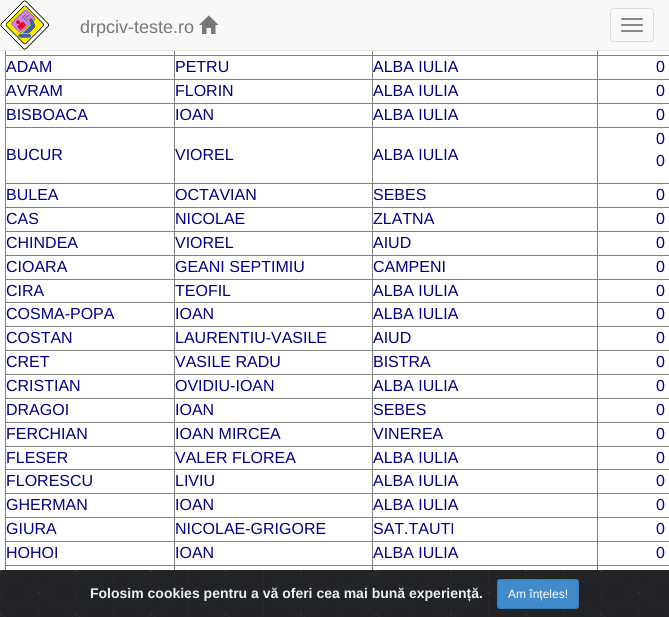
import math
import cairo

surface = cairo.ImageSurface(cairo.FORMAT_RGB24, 669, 617)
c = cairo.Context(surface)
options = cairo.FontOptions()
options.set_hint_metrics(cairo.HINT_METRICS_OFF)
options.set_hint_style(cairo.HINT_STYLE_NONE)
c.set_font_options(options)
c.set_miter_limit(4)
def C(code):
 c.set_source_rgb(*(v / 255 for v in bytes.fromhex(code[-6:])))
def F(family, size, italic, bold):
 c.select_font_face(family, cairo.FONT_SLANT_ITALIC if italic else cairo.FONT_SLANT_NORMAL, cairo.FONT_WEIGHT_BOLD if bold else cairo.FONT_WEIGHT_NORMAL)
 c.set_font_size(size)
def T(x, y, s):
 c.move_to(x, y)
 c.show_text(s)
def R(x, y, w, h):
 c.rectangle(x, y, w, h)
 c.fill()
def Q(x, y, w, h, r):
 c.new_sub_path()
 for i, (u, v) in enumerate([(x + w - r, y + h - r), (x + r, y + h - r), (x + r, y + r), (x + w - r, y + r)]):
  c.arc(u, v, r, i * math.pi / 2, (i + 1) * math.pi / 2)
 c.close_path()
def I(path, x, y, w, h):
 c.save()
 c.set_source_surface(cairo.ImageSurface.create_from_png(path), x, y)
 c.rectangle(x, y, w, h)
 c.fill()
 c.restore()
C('ffffff')
c.paint()
C('f8f8f8')
R(0,0,669,50)
C('e7e7e7')
R(0,50,669,1)
I('1.png',0,0,50,50)
F('Liberation Sans',18,0,0)
C('777777')
T(80,33,'drpciv-teste.ro')
I('2.png',199,15,20,19)
Q(610.5,8.5,43,33,3.5)
C('dddddd')
c.set_line_width(1)
c.stroke()
C('888888')
Q(621,18,22,2,1)
c.fill()
Q(621,24,22,2,1)
c.fill()
Q(621,30,22,2,1)
c.fill()
C('808080')
R(5,51,1,519)
R(597,55,72,1)
R(597,79,72,1)
R(597,103,72,1)
R(597,127,72,1)
R(597,183,72,1)
R(597,207,72,1)
R(597,231,72,1)
R(597,255,72,1)
R(597,279,72,1)
R(597,302,72,1)
R(597,326,72,1)
R(597,350,72,1)
R(597,374,72,1)
R(597,398,72,1)
R(597,422,72,1)
R(597,446,72,1)
R(597,469,72,1)
R(597,493,72,1)
R(597,517,72,1)
R(597,541,72,1)
R(597,565,72,1)
R(597,565,1,5)
R(372,565,226,1)
R(597,541,1,25)
R(372,541,226,1)
R(597,517,1,25)
R(372,517,226,1)
R(597,493,1,25)
R(372,493,226,1)
R(597,469,1,25)
R(372,469,226,1)
R(597,446,1,24)
R(372,446,226,1)
R(597,422,1,25)
R(372,422,226,1)
R(597,398,1,25)
R(372,398,226,1)
R(597,374,1,25)
R(372,374,226,1)
R(597,350,1,25)
R(372,350,226,1)
R(597,326,1,25)
R(372,326,226,1)
R(597,302,1,25)
R(372,302,226,1)
R(597,279,1,24)
R(372,279,226,1)
R(597,255,1,25)
R(372,255,226,1)
R(597,231,1,25)
R(372,231,226,1)
R(597,207,1,25)
R(372,207,226,1)
R(597,183,1,25)
R(372,183,226,1)
R(597,127,1,57)
R(372,127,226,1)
R(597,103,1,25)
R(372,103,226,1)
R(597,79,1,25)
R(372,79,226,1)
R(597,55,1,25)
R(372,55,226,1)
R(372,565,1,5)
R(174,565,199,1)
R(372,541,1,25)
R(174,541,199,1)
R(372,517,1,25)
R(174,517,199,1)
R(372,493,1,25)
R(174,493,199,1)
R(372,469,1,25)
R(174,469,199,1)
R(372,446,1,24)
R(174,446,199,1)
R(372,422,1,25)
R(174,422,199,1)
R(372,398,1,25)
R(174,398,199,1)
R(372,374,1,25)
R(174,374,199,1)
R(372,350,1,25)
R(174,350,199,1)
R(372,326,1,25)
R(174,326,199,1)
R(372,302,1,25)
R(174,302,199,1)
R(372,279,1,24)
R(174,279,199,1)
R(372,255,1,25)
R(174,255,199,1)
R(372,231,1,25)
R(174,231,199,1)
R(372,207,1,25)
R(174,207,199,1)
R(372,183,1,25)
R(174,183,199,1)
R(372,127,1,57)
R(174,127,199,1)
R(372,103,1,25)
R(174,103,199,1)
R(372,79,1,25)
R(174,79,199,1)
R(372,55,1,25)
R(174,55,199,1)
R(174,565,1,5)
R(5,565,170,1)
R(174,541,1,25)
R(5,541,170,1)
R(174,517,1,25)
R(5,517,170,1)
R(174,493,1,25)
R(5,493,170,1)
R(174,469,1,25)
R(5,469,170,1)
R(174,446,1,24)
R(5,446,170,1)
R(174,422,1,25)
R(5,422,170,1)
R(174,398,1,25)
R(5,398,170,1)
R(174,374,1,25)
R(5,374,170,1)
R(174,350,1,25)
R(5,350,170,1)
R(174,326,1,25)
R(5,326,170,1)
R(174,302,1,25)
R(5,302,170,1)
R(174,279,1,24)
R(5,279,170,1)
R(174,255,1,25)
R(5,255,170,1)
R(174,231,1,25)
R(5,231,170,1)
R(174,207,1,25)
R(5,207,170,1)
R(174,183,1,25)
R(5,183,170,1)
R(174,127,1,57)
R(5,127,170,1)
R(174,103,1,25)
R(5,103,170,1)
R(174,79,1,25)
R(5,79,170,1)
R(174,55,1,25)
R(5,55,170,1)
R(174,51,1,5)
R(372,51,1,5)
R(597,51,1,5)
F('Liberation Sans',16,0,0)
C('000080')
T(6,72,'ADAM')
T(175,72,'PETRU')
T(373,72,'ALBA IULIA')
T(656,72,'0')
T(6,96,'AVRAM')
T(175,96,'FLORIN')
T(373,96,'ALBA IULIA')
T(656,96,'0')
T(6,120,'BISBOACA')
T(175,120,'IOAN')
T(373,120,'ALBA IULIA')
T(656,120,'0')
T(6,160,'BUCUR')
T(175,160,'VIOREL')
T(373,160,'ALBA IULIA')
T(656,144,'0')
T(656,166,'0')
T(6,200,'BULEA')
T(175,200,'OCTAVIAN')
T(373,200,'SEBES')
T(656,200,'0')
T(6,224,'CAS')
T(175,224,'NICOLAE')
T(373,224,'ZLATNA')
T(656,224,'0')
T(6,248,'CHINDEA')
T(175,248,'VIOREL')
T(373,248,'AIUD')
T(656,248,'0')
T(6,272,'CIOARA')
T(175,272,'GEANI SEPTIMIU')
T(373,272,'CAMPENI')
T(656,272,'0')
T(6,296,'CIRA')
T(175,296,'TEOFIL')
T(373,296,'ALBA IULIA')
T(656,296,'0')
T(6,319,'COSMA-POPA')
T(175,319,'IOAN')
T(373,319,'ALBA IULIA')
T(656,319,'0')
T(6,343,'COSTAN')
T(175,343,'LAURENTIU-VASILE')
T(373,343,'AIUD')
T(656,343,'0')
T(6,367,'CRET')
T(175,367,'VASILE RADU')
T(373,367,'BISTRA')
T(656,367,'0')
T(6,391,'CRISTIAN')
T(175,391,'OVIDIU-IOAN')
T(373,391,'ALBA IULIA')
T(656,391,'0')
T(6,415,'DRAGOI')
T(175,415,'IOAN')
T(373,415,'SEBES')
T(656,415,'0')
T(6,439,'FERCHIAN')
T(175,439,'IOAN MIRCEA')
T(373,439,'VINEREA')
T(656,439,'0')
T(6,463,'FLESER')
T(175,463,'VALER FLOREA')
T(373,463,'ALBA IULIA')
T(656,463,'0')
T(6,486,'FLORESCU')
T(175,486,'LIVIU')
T(373,486,'ALBA IULIA')
T(656,486,'0')
T(6,510,'GHERMAN')
T(175,510,'IOAN')
T(373,510,'ALBA IULIA')
T(656,510,'0')
T(6,534,'GIURA')
T(175,534,'NICOLAE-GRIGORE')
T(373,534,'SAT.TAUTI')
T(656,534,'0')
T(6,558,'HOHOI')
T(175,558,'IOAN')
T(373,558,'ALBA IULIA')
T(656,558,'0')
I('3.png',0,570,669,47)
F('Liberation Sans',14,0,1)
C('ecf0f1')
T(90,598,'Folosim cookies pentru a vă oferi cea mai bună experiență.')
C('428bca')
Q(497.5,579.5,81,29,2.5)
c.fill_preserve()
C('357ebd')
c.stroke()
F('Liberation Sans',12,0,0)
C('ffffff')
T(508,598,'Am înțeles!')
surface.write_to_png('o.png')
